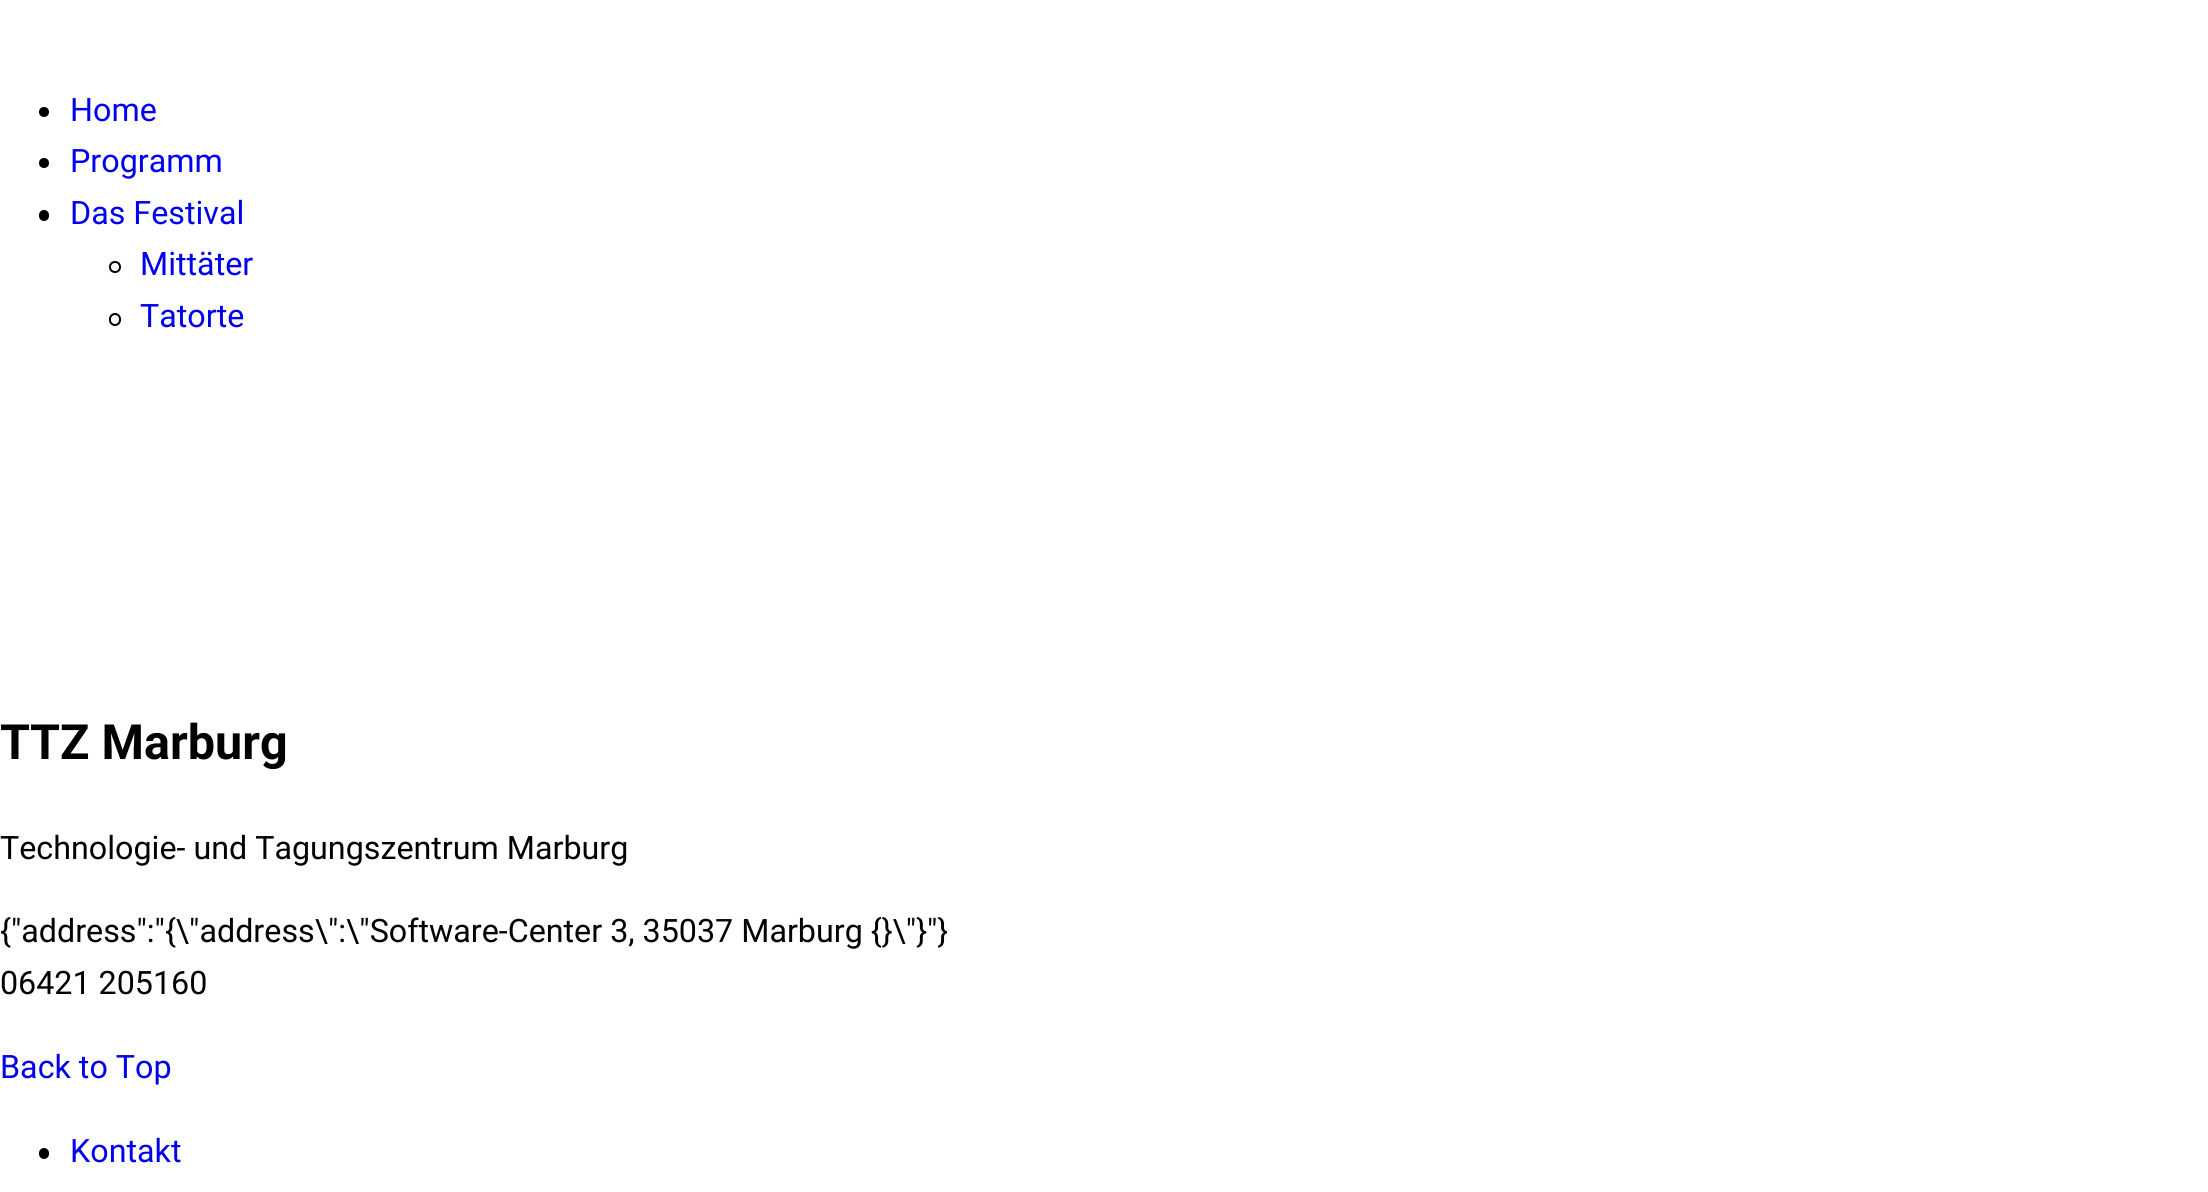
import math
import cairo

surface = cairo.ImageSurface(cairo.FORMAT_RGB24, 2208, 1192)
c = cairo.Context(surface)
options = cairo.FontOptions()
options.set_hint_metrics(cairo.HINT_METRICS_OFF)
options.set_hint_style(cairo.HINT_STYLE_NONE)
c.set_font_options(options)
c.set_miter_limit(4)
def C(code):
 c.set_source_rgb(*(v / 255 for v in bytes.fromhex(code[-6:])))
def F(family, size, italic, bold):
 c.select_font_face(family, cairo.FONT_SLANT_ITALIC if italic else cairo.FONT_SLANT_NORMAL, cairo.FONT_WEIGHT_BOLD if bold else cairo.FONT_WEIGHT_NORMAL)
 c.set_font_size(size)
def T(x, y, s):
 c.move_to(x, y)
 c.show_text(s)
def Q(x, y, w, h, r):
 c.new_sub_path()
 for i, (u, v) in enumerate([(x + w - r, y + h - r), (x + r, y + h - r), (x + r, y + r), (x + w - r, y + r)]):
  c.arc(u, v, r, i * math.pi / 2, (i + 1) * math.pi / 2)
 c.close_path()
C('ffffff')
c.paint()
C('000000')
c.arc(44,112,5,0,2 * math.pi)
c.fill()
F('Roboto',32.25,0,0)
C('0000ee')
T(70,121,'Home')
C('000000')
c.new_path()
c.arc(44,163,5,0,2 * math.pi)
c.fill()
C('0000ee')
T(70,172,'Programm')
C('000000')
Q(39,210,10,11,5)
c.fill()
C('0000ee')
T(70,224,'Das Festival')
c.new_path()
c.arc(115,267,5,0,2 * math.pi)
C('000000')
c.stroke()
C('0000ee')
T(140,275,'Mittäter')
Q(110,314,10,11,5)
C('000000')
c.stroke()
C('0000ee')
T(140,327,'Tatorte')
F('Roboto',48.5,0,1)
C('000000')
T(0,759,'TTZ Marburg')
F('Roboto',32.25,0,0)
T(0,859,'Technologie- und Tagungszentrum Marburg')
T(0,942,'{"address":"{\\"address\\":\\"Software-Center 3, 35037 Marburg {}\\"}"}')
T(0,994,'06421 205160')
C('0000ee')
T(0,1078,'Back to Top')
C('000000')
Q(39,1148,10,11,5)
c.fill()
C('0000ee')
T(70,1162,'Kontakt')
surface.write_to_png('o.png')
